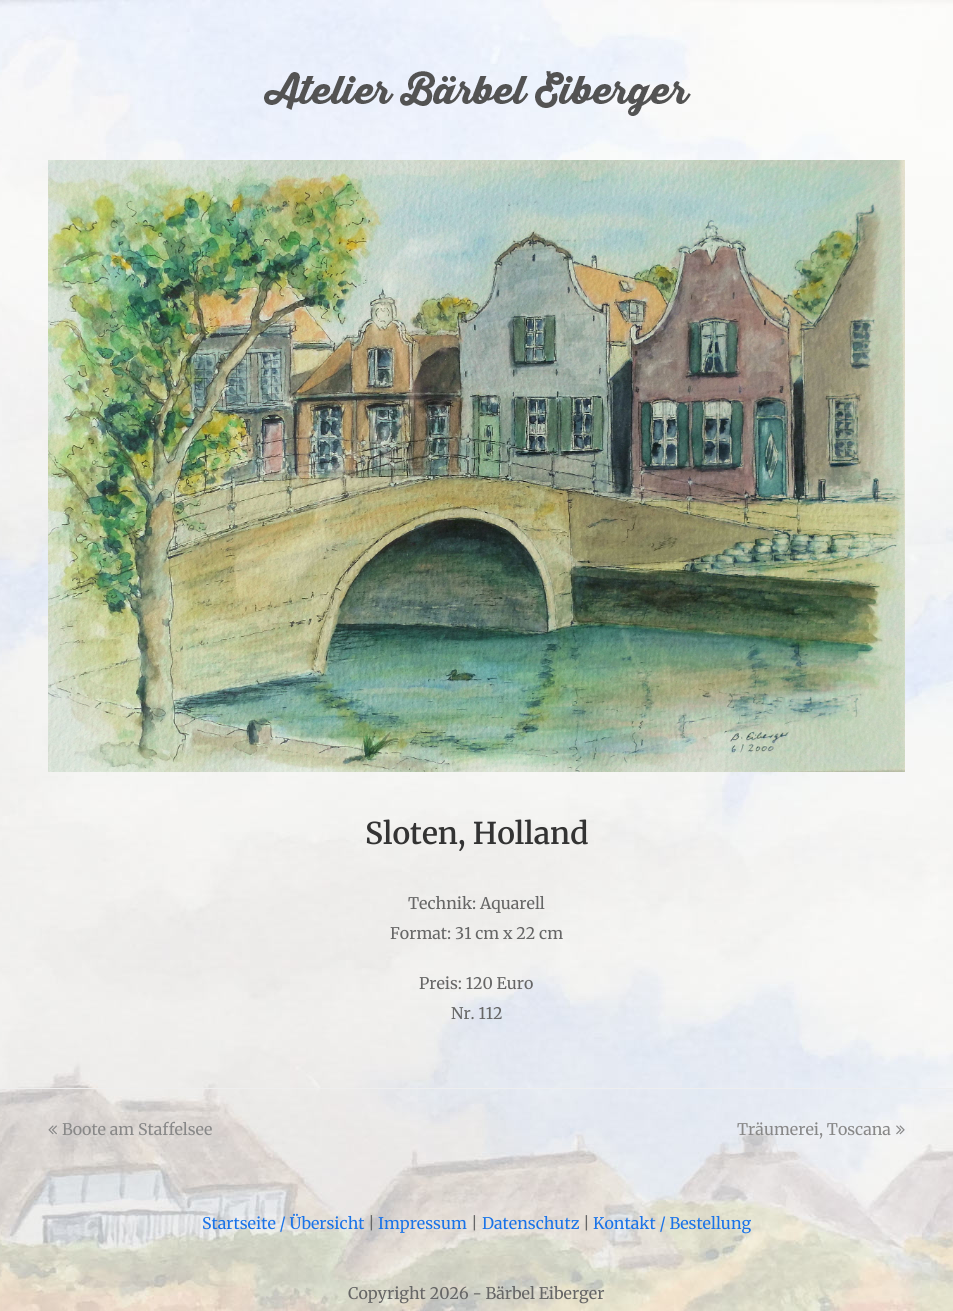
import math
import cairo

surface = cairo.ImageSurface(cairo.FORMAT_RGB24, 953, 1311)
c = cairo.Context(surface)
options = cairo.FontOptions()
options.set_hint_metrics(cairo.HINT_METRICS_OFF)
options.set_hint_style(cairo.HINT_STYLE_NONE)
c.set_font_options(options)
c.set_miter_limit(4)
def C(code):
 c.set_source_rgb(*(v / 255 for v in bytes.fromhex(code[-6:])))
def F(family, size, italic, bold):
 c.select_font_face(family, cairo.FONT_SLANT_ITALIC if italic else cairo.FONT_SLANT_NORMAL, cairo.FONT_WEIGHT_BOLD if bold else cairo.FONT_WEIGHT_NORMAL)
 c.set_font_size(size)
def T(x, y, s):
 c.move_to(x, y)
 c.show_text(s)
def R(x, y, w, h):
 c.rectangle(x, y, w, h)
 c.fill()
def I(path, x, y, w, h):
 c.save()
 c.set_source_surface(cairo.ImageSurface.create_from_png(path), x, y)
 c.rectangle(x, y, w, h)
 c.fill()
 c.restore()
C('ffffff')
c.paint()
I('1.png',0,0,953,1311)
I('2.png',264,71,427,45)
I('3.png',48,160,857,612)
F('Merriweather SemiBold',30,0,0)
C('333333')
T(365,844,'Sloten, Holland')
F('Merriweather',16,0,0)
C('666666')
T(408,909,'Technik: Aquarell')
T(390,939,'Format: 31 cm x 22 cm')
T(419,989,'Preis: 120 Euro')
T(451,1019,'Nr. 112')
C('eeeeee')
R(0,1088,953,1)
I('4.png',48,1125,9,10)
C('888888')
T(62,1135,'Boote am Staffelsee')
T(737,1135,'Träumerei, Toscana')
I('5.png',896,1125,9,10)
C('1a73e8')
T(202,1229,'Startseite / Übersicht')
C('666666')
T(368,1229,'|')
C('1a73e8')
T(378,1229,'Impressum')
C('666666')
T(471,1229,'|')
C('1a73e8')
T(482,1229,'Datenschutz')
C('666666')
T(583,1229,'|')
C('1a73e8')
T(593,1229,'Kontakt / Bestellung')
C('666666')
T(348,1299,'Copyright 2026 - Bärbel Eiberger')
surface.write_to_png('o.png')
